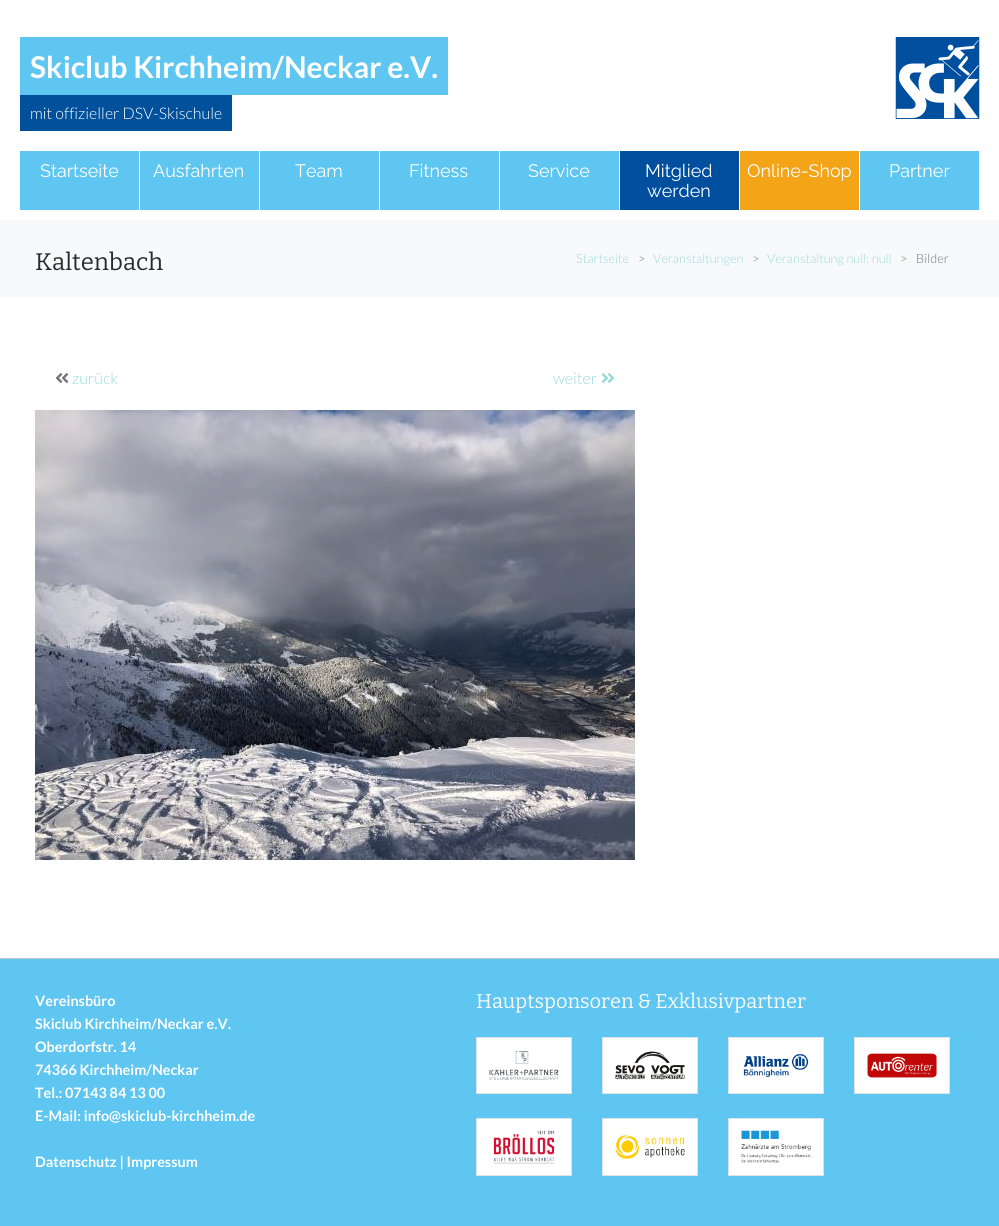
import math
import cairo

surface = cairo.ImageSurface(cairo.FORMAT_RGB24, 999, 1226)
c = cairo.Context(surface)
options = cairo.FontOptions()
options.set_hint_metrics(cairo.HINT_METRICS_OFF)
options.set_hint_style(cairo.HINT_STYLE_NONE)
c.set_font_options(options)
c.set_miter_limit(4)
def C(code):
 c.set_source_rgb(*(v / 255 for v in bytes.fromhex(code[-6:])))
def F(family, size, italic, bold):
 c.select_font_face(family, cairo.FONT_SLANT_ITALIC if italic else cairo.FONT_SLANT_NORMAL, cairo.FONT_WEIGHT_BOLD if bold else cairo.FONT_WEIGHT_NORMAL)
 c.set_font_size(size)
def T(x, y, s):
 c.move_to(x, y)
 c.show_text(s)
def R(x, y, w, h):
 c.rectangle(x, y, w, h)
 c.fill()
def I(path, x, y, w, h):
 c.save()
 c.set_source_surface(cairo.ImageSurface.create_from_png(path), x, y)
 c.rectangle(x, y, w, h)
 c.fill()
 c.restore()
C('ffffff')
c.paint()
C('5ec6f0')
R(20,37,428,58)
F('Lato',30,0,1)
C('ffffff')
T(30,78,'Skiclub Kirchheim/Neckar e.V.')
C('00509c')
R(20,95,212,36)
F('Lato Light',16,0,0)
C('ffffff')
T(30,119,'mit offizieller DSV-Skischule')
I('1.png',895,37,85,82)
C('5ec6f0')
R(20,151,119,59)
F('Raleway',18,0,0)
C('ffffff')
T(40,177,'Startseite')
C('5ec6f0')
R(140,151,119,59)
C('ffffff')
T(153,177,'Ausfahrten')
C('5ec6f0')
R(260,151,119,59)
C('ffffff')
T(295,177,'Team')
C('5ec6f0')
R(380,151,119,59)
C('ffffff')
T(409,177,'Fitness')
C('5ec6f0')
R(500,151,119,59)
C('ffffff')
T(528,177,'Service')
C('004e9e')
R(620,151,119,59)
C('ffffff')
T(645,177,'Mitglied')
T(647,197,'werden')
C('f4a417')
R(740,151,119,59)
C('ffffff')
T(747,177,'Online-Shop')
C('5ec6f0')
R(860,151,119,59)
C('ffffff')
T(889,177,'Partner')
C('f8f9fa')
R(0,220,999,77)
F('Bitter Thin',24,0,0)
C('2b2b2b')
T(35,270,'Kaltenbach')
F('Lato Light',12.75,0,0)
C('9adada')
T(576,263,'Startseite')
C('6c757d')
T(638,263,'>')
C('9adada')
T(653,263,'Veranstaltungen')
C('6c757d')
T(752,263,'>')
C('9adada')
T(767,263,'Veranstaltung null: null')
C('6c757d')
T(900,263,'>')
T(916,263,'Bilder')
I('2.png',55,373,14,10)
F('Lato Light',16,0,0)
C('9adada')
T(72,384,'zurück')
T(553,384,'weiter')
I('3.png',601,373,14,10)
I('4.png',35,410,600,450)
C('5ec6f0')
R(0,959,999,267)
C('cbcbcb')
R(0,958,999,1)
F('Lato',14.4,0,1)
C('ffffff')
T(35,1006,'Vereinsbüro')
T(35,1029,'Skiclub Kirchheim/Neckar e.V.')
T(35,1052,'Oberdorfstr. 14')
T(35,1075,'74366 Kirchheim/Neckar')
T(35,1098,'Tel.: 07143 84 13 00')
T(35,1121,'E-Mail: info@skiclub-kirchheim.de')
T(35,1167,'Datenschutz | Impressum')
F('Bitter Thin',20,0,0)
C('f8f9fa')
T(476,1008,'Hauptsponsoren & Exklusivpartner')
C('ffffff')
c.rectangle(476.5,1037.5,95,56)
c.fill_preserve()
C('dee2e6')
c.set_line_width(1)
c.stroke()
I('5.png',489,1051,70,29)
C('ffffff')
c.rectangle(602.5,1037.5,95,56)
c.fill_preserve()
C('dee2e6')
c.stroke()
I('6.png',615,1051,70,29)
C('ffffff')
c.rectangle(728.5,1037.5,95,56)
c.fill_preserve()
C('dee2e6')
c.stroke()
I('7.png',743,1053,66,25)
C('ffffff')
c.rectangle(854.5,1037.5,95,56)
c.fill_preserve()
C('dee2e6')
c.stroke()
I('8.png',867,1053,70,25)
C('ffffff')
c.rectangle(476.5,1118.5,95,57)
c.fill_preserve()
C('dee2e6')
c.stroke()
I('9.png',493,1130,62,34)
C('ffffff')
c.rectangle(602.5,1118.5,95,57)
c.fill_preserve()
C('dee2e6')
c.stroke()
I('10.png',615,1135,70,24)
C('ffffff')
c.rectangle(728.5,1118.5,95,57)
c.fill_preserve()
C('dee2e6')
c.stroke()
I('11.png',741,1130,70,34)
surface.write_to_png('o.png')
